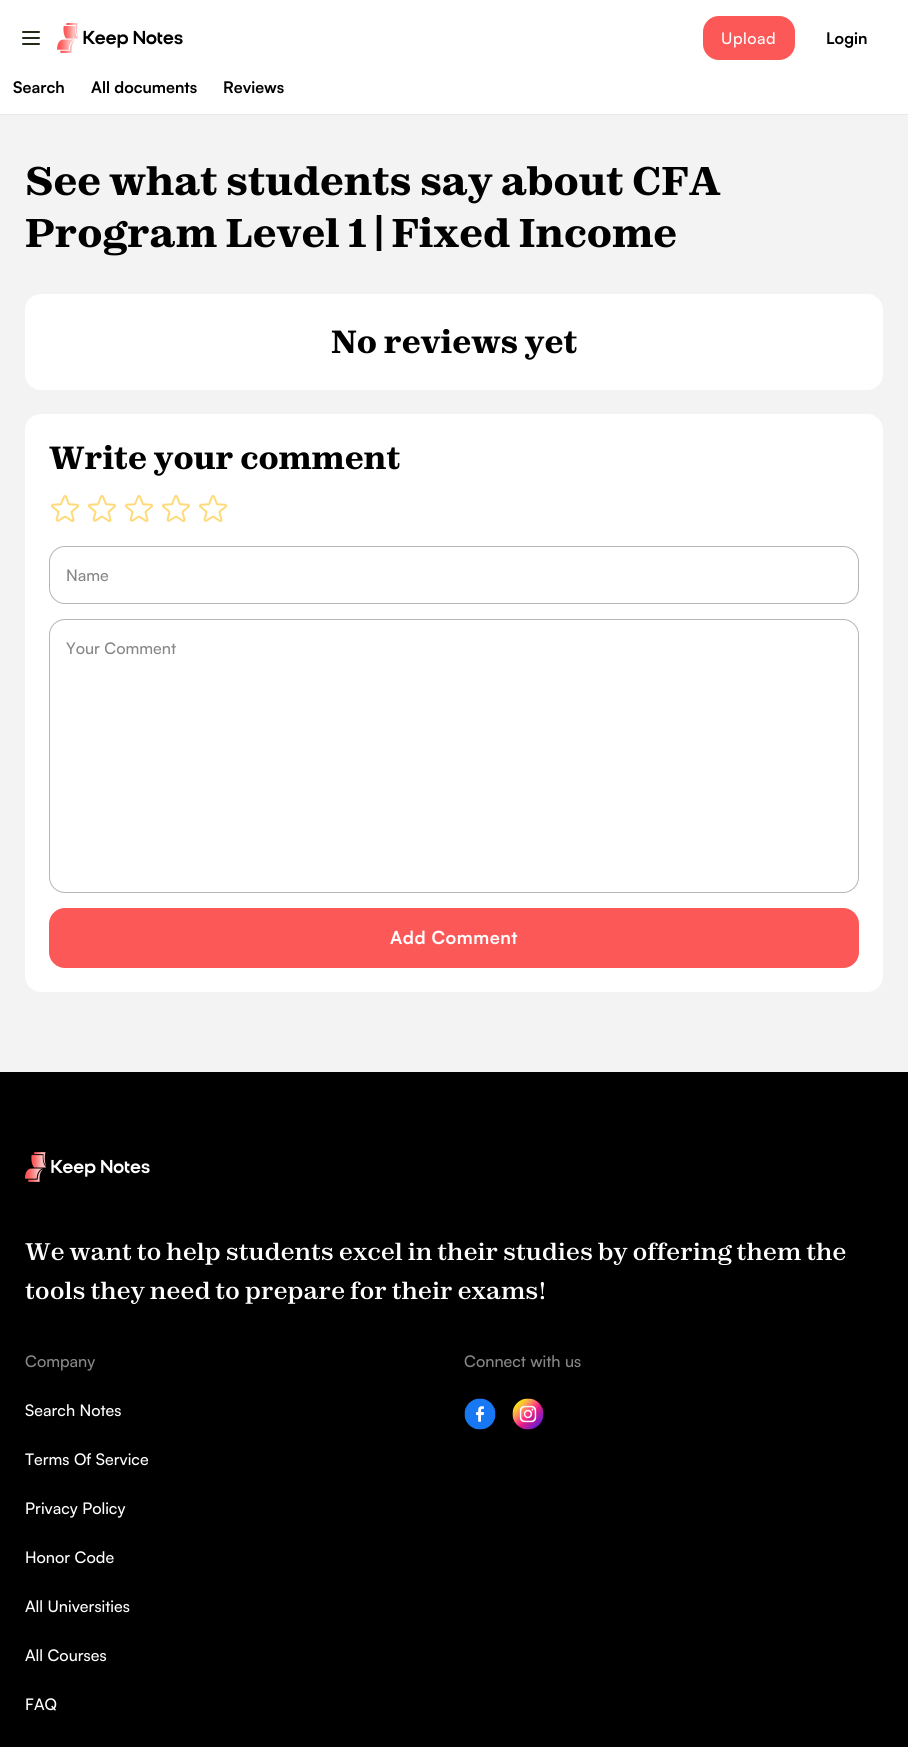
import math
import cairo

surface = cairo.ImageSurface(cairo.FORMAT_RGB24, 908, 1747)
c = cairo.Context(surface)
options = cairo.FontOptions()
options.set_hint_metrics(cairo.HINT_METRICS_OFF)
options.set_hint_style(cairo.HINT_STYLE_NONE)
c.set_font_options(options)
c.set_miter_limit(4)
def C(code):
 c.set_source_rgb(*(v / 255 for v in bytes.fromhex(code[-6:])))
def F(family, size, italic, bold):
 c.select_font_face(family, cairo.FONT_SLANT_ITALIC if italic else cairo.FONT_SLANT_NORMAL, cairo.FONT_WEIGHT_BOLD if bold else cairo.FONT_WEIGHT_NORMAL)
 c.set_font_size(size)
def T(x, y, s):
 c.move_to(x, y)
 c.show_text(s)
def L(x, y, s, letter, word):
 c.move_to(x, y)
 for ch in s:
  c.show_text(ch)
  c.rel_move_to(letter + word * (ch == ' '), 0)
def R(x, y, w, h):
 c.rectangle(x, y, w, h)
 c.fill()
def Q(x, y, w, h, r):
 c.new_sub_path()
 for i, (u, v) in enumerate([(x + w - r, y + h - r), (x + r, y + h - r), (x + r, y + r), (x + w - r, y + r)]):
  c.arc(u, v, r, i * math.pi / 2, (i + 1) * math.pi / 2)
 c.close_path()
def I(path, x, y, w, h):
 c.save()
 c.set_source_surface(cairo.ImageSurface.create_from_png(path), x, y)
 c.rectangle(x, y, w, h)
 c.fill()
 c.restore()
C('000000')
c.paint()
C('ffffff')
R(0,0,908,114)
c.new_path()
c.move_to(23,38)
c.line_to(39,38)
c.move_to(23,32)
c.line_to(39,32)
c.move_to(23,44)
c.line_to(39,44)
C('212b17')
c.set_line_cap(cairo.LINE_CAP_ROUND)
c.set_line_join(cairo.LINE_JOIN_ROUND)
c.stroke()
I('1.png',57,23,126,30)
C('fd5858')
Q(703,16,92,44,16)
c.fill()
F('Satoshi Medium',16,0,0)
C('ffffff')
L(721,44,'Upload',.5,0)
F('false',16,0,1)
C('000000')
T(826,44,'Login')
C('e8e8ee')
R(0,114,908,1)
C('000000')
T(13,93,'Search')
T(91,93,'All documents')
T(223,93,'Reviews')
C('f3f3f3')
R(0,115,908,957)
F('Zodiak',40,0,1)
C('000000')
T(25,195,'See what students say about CFA')
T(25,247,'Program Level 1 | Fixed Income')
C('ffffff')
Q(25,294,858,96,16)
c.fill()
F('Zodiak',32,0,1)
C('000000')
T(331,353,'No reviews yet')
C('ffffff')
Q(25,414,858,578,16)
c.fill()
C('000000')
T(49,469,'Write your comment')
I('2.png',51,495,28,27)
I('2.png',88,495,28,27)
I('2.png',125,495,28,27)
I('2.png',162,495,28,27)
I('2.png',199,495,28,27)
Q(49.5,546.5,809,57,15.5)
C('b5b5b5')
c.set_line_width(1)
c.set_line_cap(cairo.LINE_CAP_BUTT)
c.set_line_join(cairo.LINE_JOIN_MITER)
c.stroke()
F('Satoshi Medium',16,0,0)
C('878787')
T(66,581,'Name')
Q(49.5,619.5,809,273,15.5)
C('b5b5b5')
c.stroke()
C('878787')
T(66,654,'Your Comment')
C('fd5858')
Q(49,908,810,60,16)
c.fill()
F('false',18,0,1)
C('ffffff')
L(390,944,'Add Comment',.5,0)
I('3.png',25,1152,125,30)
F('false Medium',24,0,0)
T(25,1260,'We want to help students excel in their studies by offering them the')
T(25,1299,'tools they need to prepare for their exams!')
F('Satoshi Medium',16,0,0)
C('878787')
T(25,1367,'Company')
C('ffffff')
T(25,1416,'Search Notes')
T(25,1465,'Terms Of Service')
T(25,1514,'Privacy Policy')
T(25,1563,'Honor Code')
T(25,1612,'All Universities')
T(25,1661,'All Courses')
T(25,1710,'FAQ')
C('878787')
T(464,1367,'Connect with us')
I('4.png',464,1398,32,32)
I('5.png',512,1398,32,32)
surface.write_to_png('o.png')
